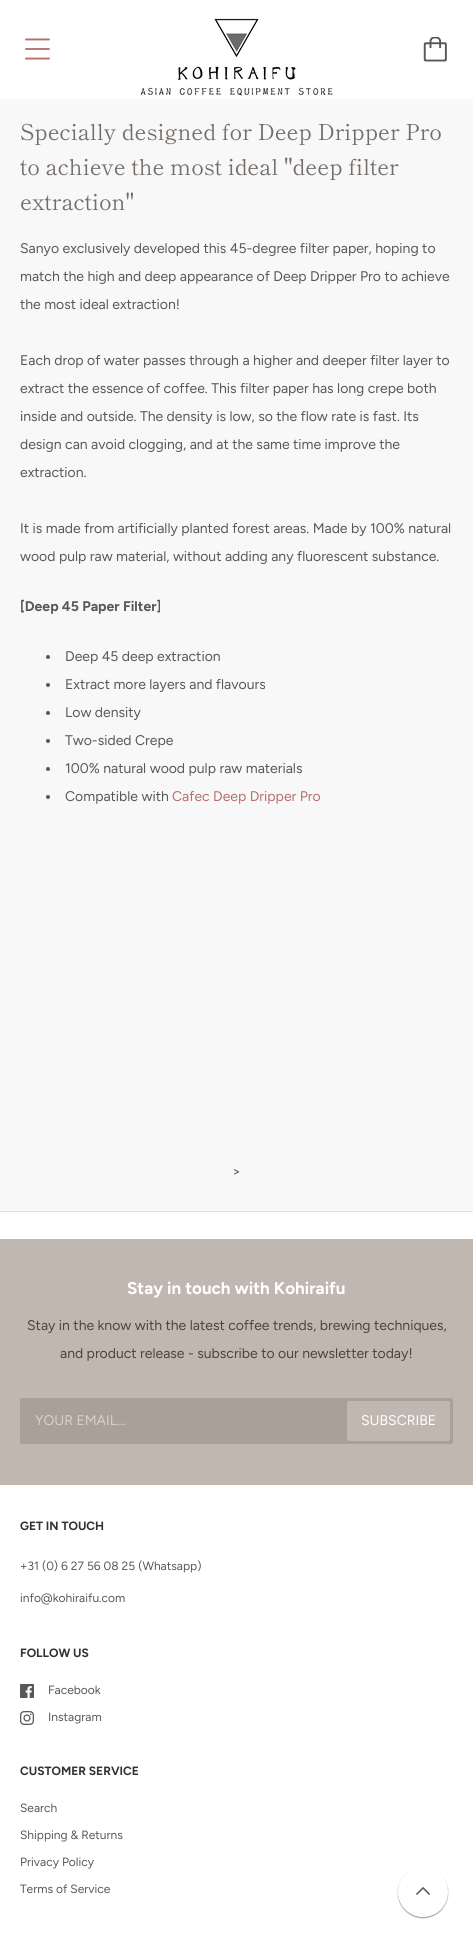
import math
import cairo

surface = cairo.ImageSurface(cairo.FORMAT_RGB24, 473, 1947)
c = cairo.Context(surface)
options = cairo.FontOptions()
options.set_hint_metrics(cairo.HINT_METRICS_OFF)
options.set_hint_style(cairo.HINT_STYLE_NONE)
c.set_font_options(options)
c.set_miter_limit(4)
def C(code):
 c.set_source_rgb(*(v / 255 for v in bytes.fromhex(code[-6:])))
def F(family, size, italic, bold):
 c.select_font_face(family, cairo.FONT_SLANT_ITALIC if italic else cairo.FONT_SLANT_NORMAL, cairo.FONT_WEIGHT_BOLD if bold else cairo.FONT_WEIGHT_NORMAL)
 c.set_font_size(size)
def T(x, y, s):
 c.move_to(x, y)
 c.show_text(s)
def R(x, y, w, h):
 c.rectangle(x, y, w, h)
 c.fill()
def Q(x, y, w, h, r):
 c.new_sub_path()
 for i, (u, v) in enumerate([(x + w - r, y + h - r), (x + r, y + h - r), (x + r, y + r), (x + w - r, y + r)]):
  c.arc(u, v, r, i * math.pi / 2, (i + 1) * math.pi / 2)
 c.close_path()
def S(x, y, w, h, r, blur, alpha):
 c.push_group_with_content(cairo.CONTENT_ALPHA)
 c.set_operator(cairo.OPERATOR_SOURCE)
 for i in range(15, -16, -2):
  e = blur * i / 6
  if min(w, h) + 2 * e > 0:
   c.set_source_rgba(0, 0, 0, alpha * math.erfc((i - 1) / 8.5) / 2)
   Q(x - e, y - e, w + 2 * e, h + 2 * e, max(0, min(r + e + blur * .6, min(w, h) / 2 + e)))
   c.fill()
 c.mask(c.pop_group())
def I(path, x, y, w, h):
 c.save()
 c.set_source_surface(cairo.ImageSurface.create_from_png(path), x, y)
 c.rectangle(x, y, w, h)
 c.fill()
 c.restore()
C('ffffff')
c.paint()
C('fafafa')
R(0,99,473,1)
I('1.png',25,38,25,22)
I('2.png',140,16,194,80)
I('3.png',423,37,24,25)
C('e3e0df')
R(0,1211,473,1)
C('f8f8f8')
R(0,100,473,1111)
F('Shippori Mincho',22,0,0)
C('736d69')
T(20,140,'Specially designed for Deep Dripper Pro')
T(20,175,'to achieve the most ideal "deep filter')
T(20,210,'extraction"')
F('Figtree',14,0,0)
C('585858')
T(20,253,'Sanyo exclusively developed this 45-degree filter paper, hoping to')
T(20,281,'match the high and deep appearance of Deep Dripper Pro to achieve')
T(20,309,'the most ideal extraction!')
T(20,365,'Each drop of water passes through a higher and deeper filter layer to')
T(20,393,'extract the essence of coffee. This filter paper has long crepe both')
T(20,421,'inside and outside. The density is low, so the flow rate is fast. Its')
T(20,449,'design can avoid clogging, and at the same time improve the')
T(20,477,'extraction.')
T(20,533,'It is made from artificially planted forest areas. Made by 100% natural')
T(20,561,'wood pulp raw material, without adding any fluorescent substance.')
F('Figtree',14,0,1)
T(20,611,'[Deep 45 Paper Filter]')
c.new_path()
c.arc(48,657,2,0,2 * math.pi)
c.fill()
F('Figtree',14,0,0)
T(65,661,'Deep 45 deep extraction')
c.new_path()
c.arc(48,685,2,0,2 * math.pi)
c.fill()
T(65,689,'Extract more layers and flavours')
c.new_path()
c.arc(48,713,2,0,2 * math.pi)
c.fill()
T(65,717,'Low density')
c.new_path()
c.arc(48,741,2,0,2 * math.pi)
c.fill()
T(65,745,'Two-sided Crepe')
c.new_path()
c.arc(48,769,2,0,2 * math.pi)
c.fill()
T(65,773,'100% natural wood pulp raw materials')
c.new_path()
c.arc(48,797,2,0,2 * math.pi)
c.fill()
T(65,801,'Compatible with')
C('b76e6e')
T(172,801,'Cafec Deep Dripper Pro')
C('585858')
T(232,1176,'>')
C('c0b7b1')
R(0,1239,473,1)
R(0,1240,473,245)
F('Figtree',17,0,1)
C('ffffff')
T(127,1294,'Stay in touch with Kohiraifu')
F('Figtree',14,0,0)
C('4d443e')
T(27,1330,'Stay in the know with the latest coffee trends, brewing techniques,')
T(60,1358,'and product release - subscribe to our newsletter today!')
C('aba098')
Q(20,1398,433,46,2)
c.fill()
C('d7d1cd')
T(35,1425,'YOUR EMAIL...')
C('c0b7b1')
Q(347,1401,103,40,2)
c.fill()
C('ffffff')
T(361,1425,'SUBSCRIBE')
F('Figtree',12,0,1)
C('323232')
T(20,1530,'GET IN TOUCH')
F('Figtree',12,0,0)
C('585858')
T(20,1570,'+31 (0) 6 27 56 08 25 (Whatsapp)')
T(20,1602,'info@kohiraifu.com')
F('Figtree',12,0,1)
C('323232')
T(20,1657,'FOLLOW US')
I('4.png',20,1684,14,14)
F('Figtree',12,0,0)
C('585858')
T(48,1694,'Facebook')
I('5.png',20,1711,14,14)
T(48,1721,'Instagram')
F('Figtree',12,0,1)
C('323232')
T(20,1775,'CUSTOMER SERVICE')
F('Figtree',12,0,0)
C('585858')
T(20,1812,'Search')
T(20,1839,'Shipping & Returns')
T(20,1866,'Privacy Policy')
T(20,1893,'Terms of Service')
C('585858')
S(398,1868,50,50,25,.5,.6)
C('ffffff')
c.arc(423,1892,25,0,2 * math.pi)
c.fill()
I('6.png',416,1887,14,8)
surface.write_to_png('o.png')
